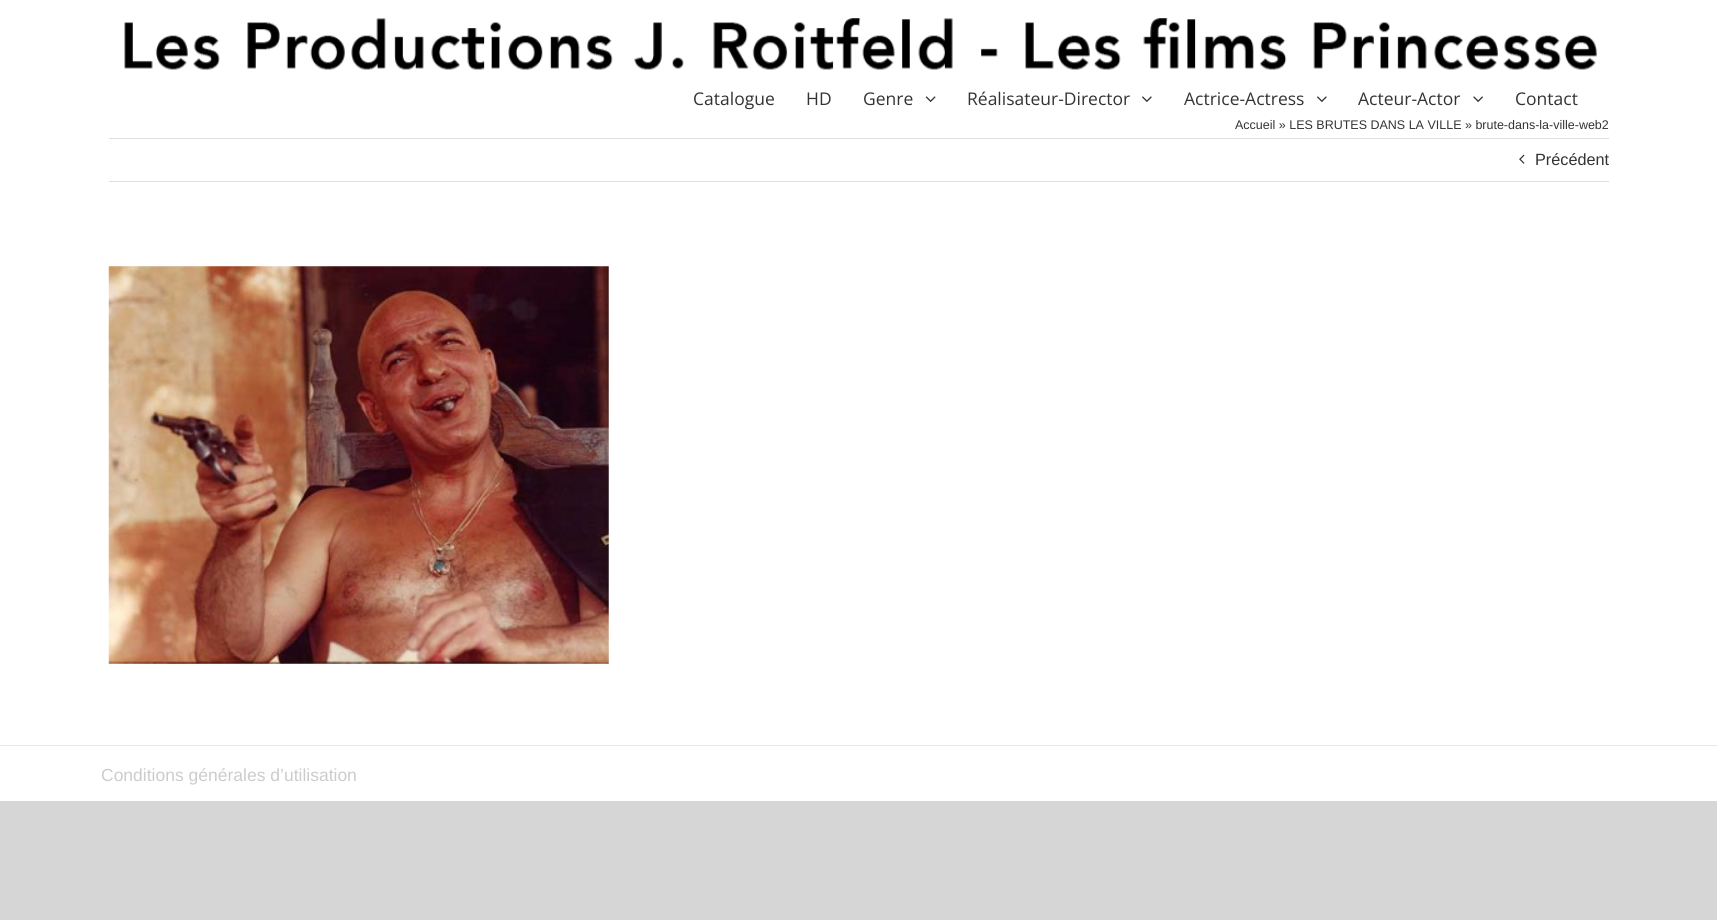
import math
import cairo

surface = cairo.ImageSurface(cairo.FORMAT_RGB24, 1717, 920)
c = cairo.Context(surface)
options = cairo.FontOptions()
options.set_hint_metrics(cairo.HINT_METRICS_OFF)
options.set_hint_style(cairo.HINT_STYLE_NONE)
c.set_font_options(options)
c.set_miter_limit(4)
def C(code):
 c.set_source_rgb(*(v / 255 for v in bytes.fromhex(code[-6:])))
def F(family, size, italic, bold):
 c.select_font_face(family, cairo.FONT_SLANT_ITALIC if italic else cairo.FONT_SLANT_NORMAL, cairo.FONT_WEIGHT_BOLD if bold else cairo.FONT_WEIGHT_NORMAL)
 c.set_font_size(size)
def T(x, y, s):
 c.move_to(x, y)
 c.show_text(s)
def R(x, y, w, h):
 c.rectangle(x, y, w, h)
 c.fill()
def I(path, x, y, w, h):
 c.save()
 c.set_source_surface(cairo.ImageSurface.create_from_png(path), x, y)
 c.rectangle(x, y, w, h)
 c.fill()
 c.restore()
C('d7d6d6')
c.paint()
C('ffffff')
R(0,0,1717,801)
I('1.png',124,18,1473,52)
F('Open Sans',17.5,0,0)
C('333333')
T(693,105,'Catalogue')
T(806,105,'HD')
T(863,105,'Genre')
I('2.png',925,96,11,6)
T(967,105,'Réalisateur-Director')
I('3.png',1142,96,10,6)
T(1184,105,'Actrice-Actress')
I('3.png',1317,96,10,6)
T(1358,105,'Acteur-Actor')
I('4.png',1473,96,10,6)
T(1515,105,'Contact')
F('Liberation Sans',12.5,0,0)
T(1235,129,'Accueil » LES BRUTES DANS LA VILLE » brute-dans-la-ville-web2')
C('e0dede')
R(109,138,1500,1)
R(109,181,1500,1)
I('5.png',1519,154,6,10)
F('Liberation Sans',16.25,0,0)
C('333333')
T(1535,165,'Précédent')
I('6.png',108,266,501,398)
C('e6e6e6')
R(0,745,1717,1)
F('Liberation Sans',17.5,0,0)
C('cccccc')
T(101,781,'Conditions générales d’utilisation')
surface.write_to_png('o.png')
